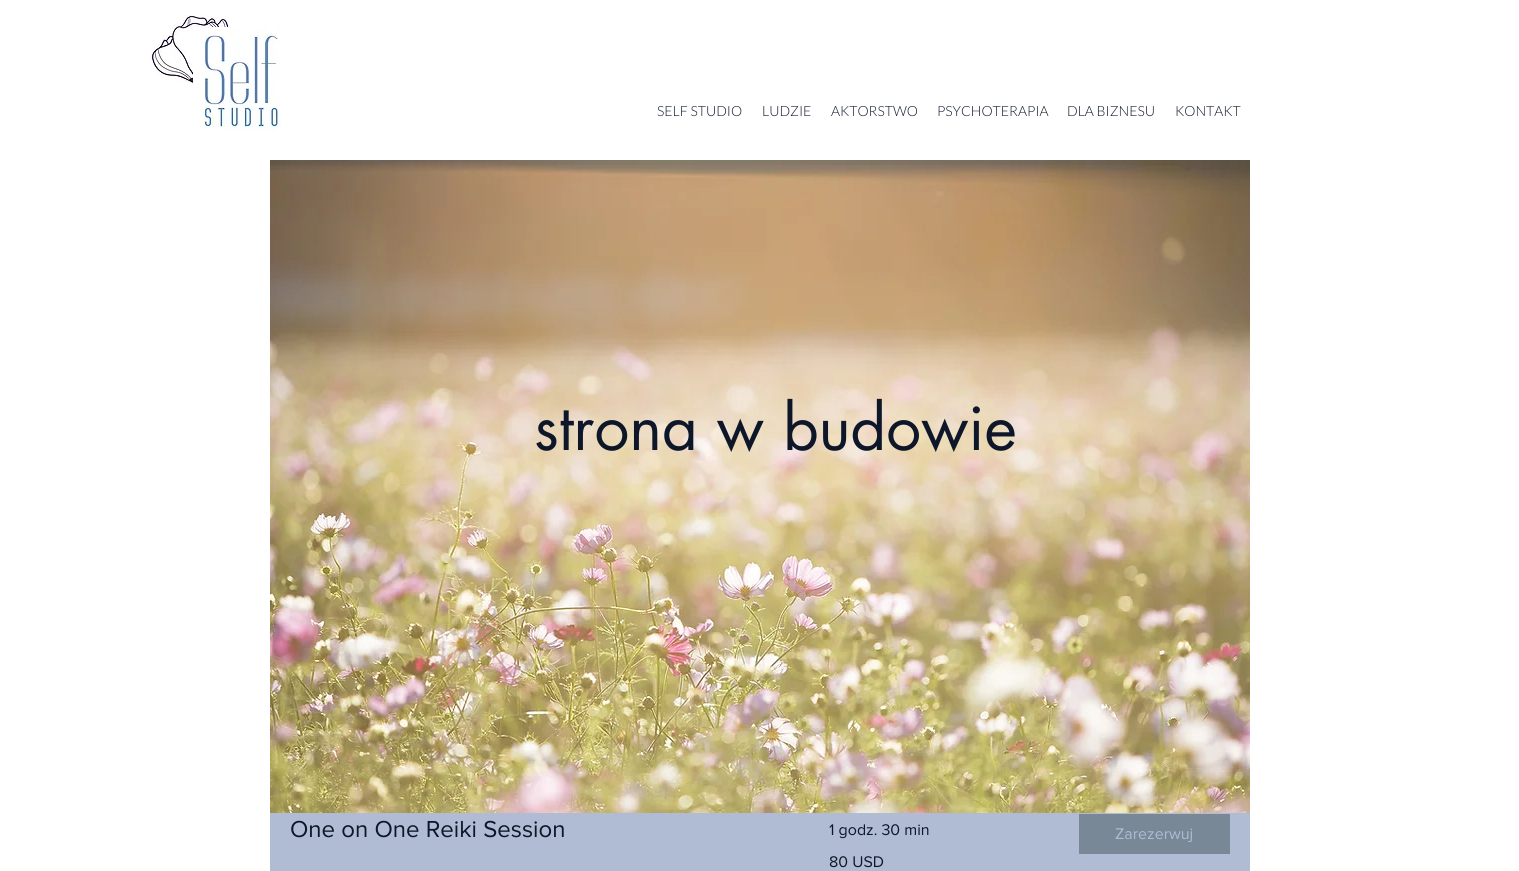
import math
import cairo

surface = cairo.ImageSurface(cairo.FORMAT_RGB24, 1519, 871)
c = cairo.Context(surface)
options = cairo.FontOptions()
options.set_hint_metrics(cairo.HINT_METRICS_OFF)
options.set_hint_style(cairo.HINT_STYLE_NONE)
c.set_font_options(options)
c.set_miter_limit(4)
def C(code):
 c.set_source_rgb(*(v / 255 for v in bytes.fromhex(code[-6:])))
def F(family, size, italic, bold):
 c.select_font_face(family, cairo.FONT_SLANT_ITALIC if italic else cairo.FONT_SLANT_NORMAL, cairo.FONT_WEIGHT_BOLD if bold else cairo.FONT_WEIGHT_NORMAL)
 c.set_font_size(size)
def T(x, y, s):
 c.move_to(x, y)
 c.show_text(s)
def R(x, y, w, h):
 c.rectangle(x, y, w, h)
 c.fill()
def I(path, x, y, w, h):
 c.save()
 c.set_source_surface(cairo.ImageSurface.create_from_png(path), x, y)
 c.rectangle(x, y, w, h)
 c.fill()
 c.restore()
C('ffffff')
c.paint()
I('1.png',150,15,80,112)
I('2.png',193,27,88,104)
F('Lato Light',14,0,0)
C('0e1729')
T(657,116,'SELF STUDIO')
T(762,116,'LUDZIE')
T(831,116,'AKTORSTWO')
T(937,116,'PSYCHOTERAPIA')
T(1067,116,'DLA BIZNESU')
T(1175,116,'KONTAKT')
I('3.png',270,160,980,653)
F('futura',62,0,0)
T(534,450,'strona w budowie')
C('b0bcd4')
R(270,813,980,58)
F('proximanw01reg',24,0,0)
C('0e1729')
T(290,837,'One on One Reiki Session')
F('proximanw01reg',16,0,0)
T(829,835,'1 godz. 30 min')
T(829,867,'80 USD')
C('788896')
R(1079,814,151,40)
C('b0bcd4')
T(1115,839,'Zarezerwuj')
surface.write_to_png('o.png')
